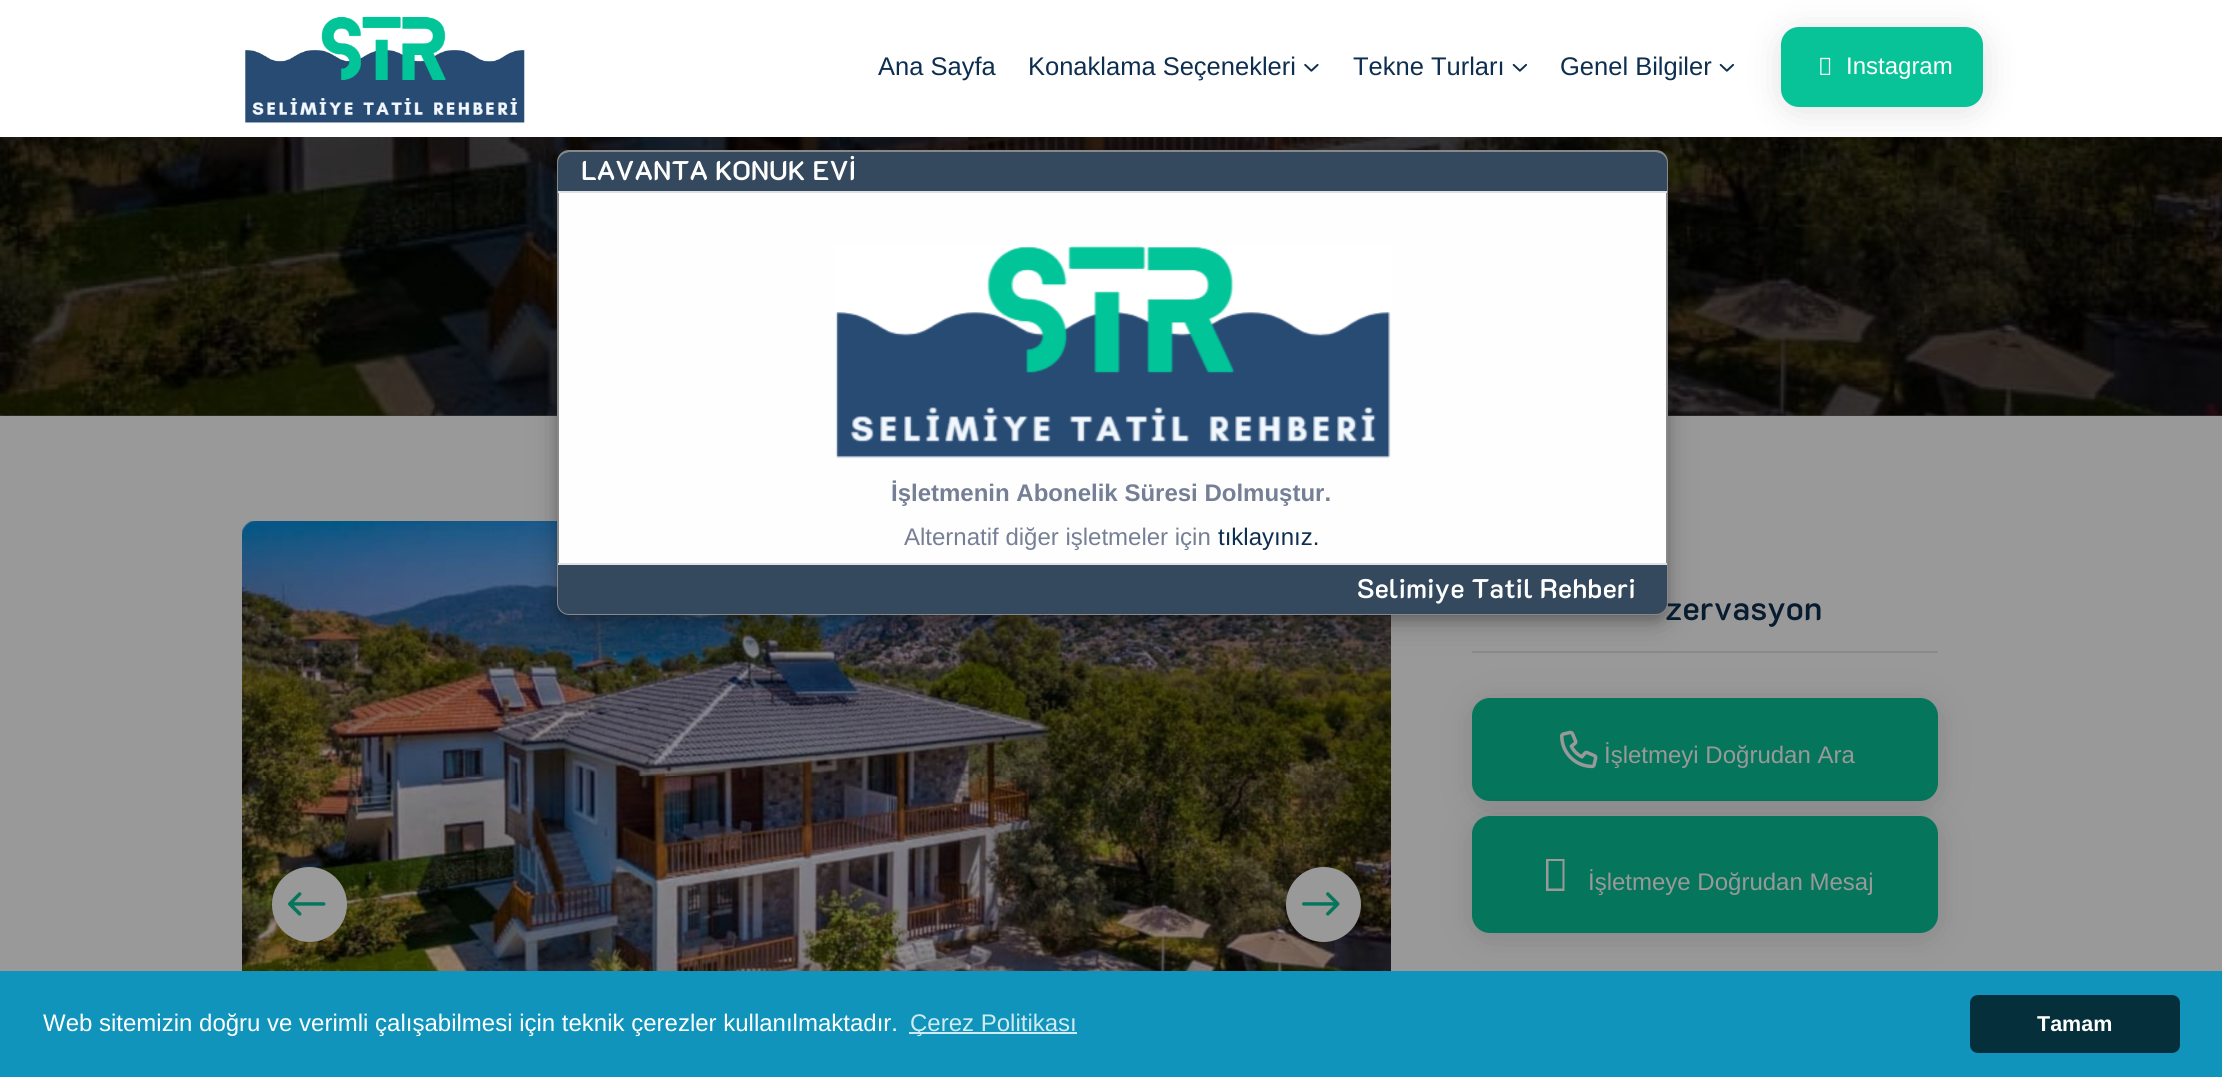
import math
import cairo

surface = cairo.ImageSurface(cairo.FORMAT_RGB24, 2222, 1077)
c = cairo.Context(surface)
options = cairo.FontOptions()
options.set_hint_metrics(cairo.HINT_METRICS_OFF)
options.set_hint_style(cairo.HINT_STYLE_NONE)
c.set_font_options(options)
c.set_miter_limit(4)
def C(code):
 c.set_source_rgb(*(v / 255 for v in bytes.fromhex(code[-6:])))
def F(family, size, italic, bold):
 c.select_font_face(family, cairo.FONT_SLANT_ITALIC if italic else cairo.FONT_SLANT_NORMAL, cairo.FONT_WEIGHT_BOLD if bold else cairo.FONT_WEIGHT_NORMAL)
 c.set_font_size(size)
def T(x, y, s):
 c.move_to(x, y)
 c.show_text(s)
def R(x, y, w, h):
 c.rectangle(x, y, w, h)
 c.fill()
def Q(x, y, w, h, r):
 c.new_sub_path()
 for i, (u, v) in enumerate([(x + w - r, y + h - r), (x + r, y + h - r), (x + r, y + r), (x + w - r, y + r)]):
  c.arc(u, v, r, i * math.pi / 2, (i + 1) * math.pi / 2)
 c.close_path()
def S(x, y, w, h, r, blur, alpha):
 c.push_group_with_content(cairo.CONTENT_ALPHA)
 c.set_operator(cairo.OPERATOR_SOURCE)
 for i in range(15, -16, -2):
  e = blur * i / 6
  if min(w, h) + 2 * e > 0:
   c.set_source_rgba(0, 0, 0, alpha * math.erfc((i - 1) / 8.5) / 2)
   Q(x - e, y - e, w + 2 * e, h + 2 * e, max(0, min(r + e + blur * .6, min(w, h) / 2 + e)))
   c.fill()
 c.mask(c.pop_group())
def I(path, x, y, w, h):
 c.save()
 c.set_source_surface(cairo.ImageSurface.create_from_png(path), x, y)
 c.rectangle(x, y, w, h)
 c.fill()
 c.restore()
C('999999')
c.paint()
C('3d3d3d')
R(0,415,2222,1)
I('5.png',0,137,2222,279)
I('7.png',242,521,1149,450)
C('8a8a8a')
R(1472,651,466,2)
C('000000')
S(557,159,1111,465,12,15,.19)
C('ffffff')
R(0,0,2222,137)
I('1.png',245,16,280,107)
F('Liberation Sans',25.5,0,0)
C('0e2e50')
T(878,75,'Ana Sayfa')
T(1028,75,'Konaklama Seçenekleri')
I('2.png',1304,63,15,9)
T(1353,75,'Tekne Turları')
I('3.png',1512,63,15,9)
T(1560,75,'Genel Bilgiler')
I('3.png',1719,63,15,9)
C('000000')
S(1781,32,202,79,18,18,.12)
C('09c398')
Q(1781,27,202,80,18)
c.fill()
I('4.png',1820,57,11,18)
F('Liberation Sans',24,0,0)
C('ffffff')
T(1846,74,'Instagram')
C('000000')
S(557,156,1111,465,12,6,.2)
F('K2D SemiBold',33,0,0)
C('081c30')
T(1665,620,'zervasyon')
C('fefefe')
Q(558,151,1109,463,11)
c.fill_preserve()
C('888888')
c.stroke()
C('34495e')
c.new_path()
c.move_to(569,152)
c.line_to(1656,152)
c.curve_to(1662,152,1667,157,1667,163)
c.line_to(1667,192)
c.line_to(558,192)
c.line_to(558,163)
c.curve_to(558,157,563,152,569,152)
c.close_path()
c.fill()
C('dee2e6')
R(558,191,1109,2)
F('K2D SemiBold',27,0,0)
C('ffffff')
T(581,180,'LAVANTA KONUK EVİ')
I('6.png',835,245,556,214)
F('Liberation Sans',24,0,1)
C('757f95')
T(891,501,'İşletmenin Abonelik Süresi Dolmuştur.')
F('Liberation Sans',24,0,0)
T(904,545,'Alternatif diğer işletmeler için')
C('0e2e50')
T(1218,545,'tıklayınız.')
C('34495e')
c.new_path()
c.move_to(558,563)
c.line_to(1667,563)
c.line_to(1667,603)
c.curve_to(1667,609,1662,614,1656,614)
c.line_to(569,614)
c.curve_to(563,614,558,609,558,603)
c.close_path()
c.fill()
C('dee2e6')
R(558,563,1109,2)
F('K2D SemiBold',27,0,0)
C('ffffff')
T(1357,598,'Selimiye Tatil Rehberi')
C('999999')
c.new_path()
c.arc(309.5,904.5,37.5,0,2 * math.pi)
c.fill()
I('8.png',288,892,38,24)
c.arc(1323.5,904.5,37.5,0,2 * math.pi)
c.fill()
I('9.png',1302,892,38,24)
C('000000')
S(1472,702,466,104,18,18,.12)
C('05755b')
Q(1472,698,466,103,18)
c.fill()
I('10.png',1560,730,38,39)
F('Liberation Sans',24,0,0)
C('999999')
T(1604,763,'İşletmeyi Doğrudan Ara')
C('000000')
S(1472,821,466,117,18,18,.12)
C('05755b')
Q(1472,816,466,117,18)
c.fill()
C('999999')
c.new_path()
c.move_to(1546,891)
c.line_to(1546,859)
c.line_to(1564.5,859)
c.line_to(1564.5,891)
c.close_path()
c.move_to(1548.5,888.5)
c.line_to(1562.5,888.5)
c.line_to(1562.5,861)
c.line_to(1548.5,861)
c.close_path()
c.fill()
T(1588,890,'İşletmeye Doğrudan Mesaj')
C('1094bb')
R(0,971,2222,106)
C('ffffff')
T(43,1031,'Web sitemizin doğru ve verimli çalışabilmesi için teknik çerezler kullanılmaktadır.')
C('cfeaf1')
R(909,1032,168,2)
T(910,1031,'Çerez Politikası')
C('062f3c')
Q(1970,995,210,58,8)
c.fill()
F('Liberation Sans',21.5,0,1)
C('ffffff')
T(2037,1031,'Tamam')
surface.write_to_png('o.png')
